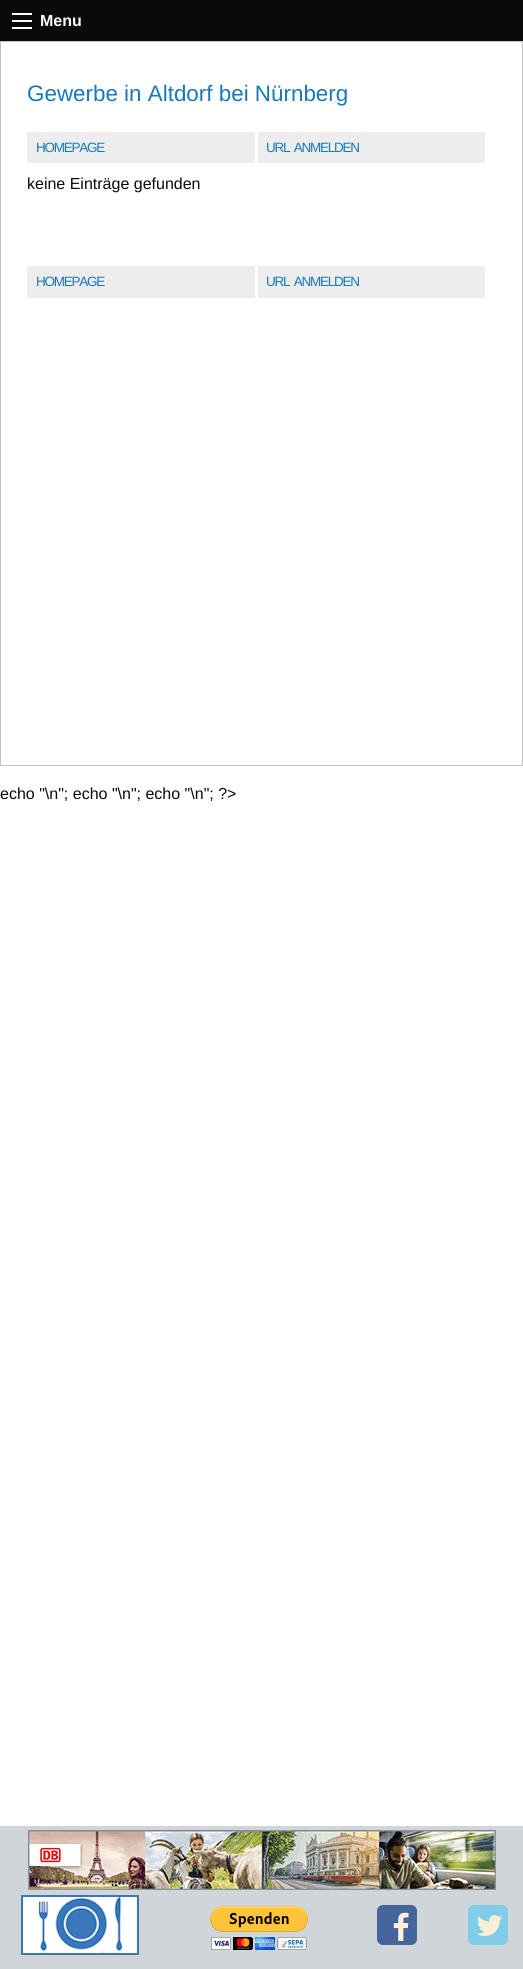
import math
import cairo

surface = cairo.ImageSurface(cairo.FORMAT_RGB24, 523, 1969)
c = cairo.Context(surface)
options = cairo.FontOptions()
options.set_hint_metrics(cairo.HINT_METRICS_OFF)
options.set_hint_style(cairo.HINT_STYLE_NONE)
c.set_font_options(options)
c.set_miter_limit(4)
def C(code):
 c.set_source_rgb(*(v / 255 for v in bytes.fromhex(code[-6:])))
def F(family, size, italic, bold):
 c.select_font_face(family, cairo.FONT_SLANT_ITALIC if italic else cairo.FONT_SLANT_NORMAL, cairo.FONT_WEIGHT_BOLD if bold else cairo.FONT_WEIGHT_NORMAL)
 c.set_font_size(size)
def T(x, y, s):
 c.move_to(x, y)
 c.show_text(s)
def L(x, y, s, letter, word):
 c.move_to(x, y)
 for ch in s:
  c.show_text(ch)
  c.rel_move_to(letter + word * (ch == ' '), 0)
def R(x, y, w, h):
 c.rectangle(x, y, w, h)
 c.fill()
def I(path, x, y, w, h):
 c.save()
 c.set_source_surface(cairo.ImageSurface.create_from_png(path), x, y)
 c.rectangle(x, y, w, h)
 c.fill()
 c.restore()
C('ffffff')
c.paint()
C('0a0a0a')
R(0,0,523,41)
C('fefefe')
R(12,27,20,2)
R(12,20,20,2)
R(12,13,20,2)
F('Liberation Sans',16,0,1)
T(40,26,'Menu')
c.rectangle(.5,41.5,522,724)
C('c2c2c2')
c.set_line_width(1)
c.stroke()
F('Liberation Sans',22.4,0,0)
C('1779ba')
T(27,101,'Gewerbe in Altdorf bei Nürnberg')
C('ededed')
R(27,132,228,31)
F('Liberation Sans',13.5,0,0)
C('1779ba')
L(36,152,'HOMEPAGE',-1.25,0)
C('ededed')
R(258,132,227,31)
C('1779ba')
L(266,152,'URL ANMELDEN',-1.25,2)
F('Liberation Sans',16,0,0)
C('0a0a0a')
T(27,189,'keine Einträge gefunden')
C('ededed')
R(27,266,228,32)
F('Liberation Sans',13.5,0,0)
C('1779ba')
L(36,286,'HOMEPAGE',-1.25,0)
C('ededed')
R(258,266,227,32)
C('1779ba')
L(266,286,'URL ANMELDEN',-1.25,2)
F('Liberation Sans',16,0,0)
C('0a0a0a')
T(0,799,'echo "\\n"; echo "\\n"; echo "\\n"; ?>')
C('d0d5da')
R(0,1826,523,143)
I('1.png',28,1830,468,60)
I('2.png',21,1895,118,60)
I('3.png',210,1906,98,44)
I('4.png',377,1905,40,40)
I('5.png',468,1905,40,40)
surface.write_to_png('o.png')
